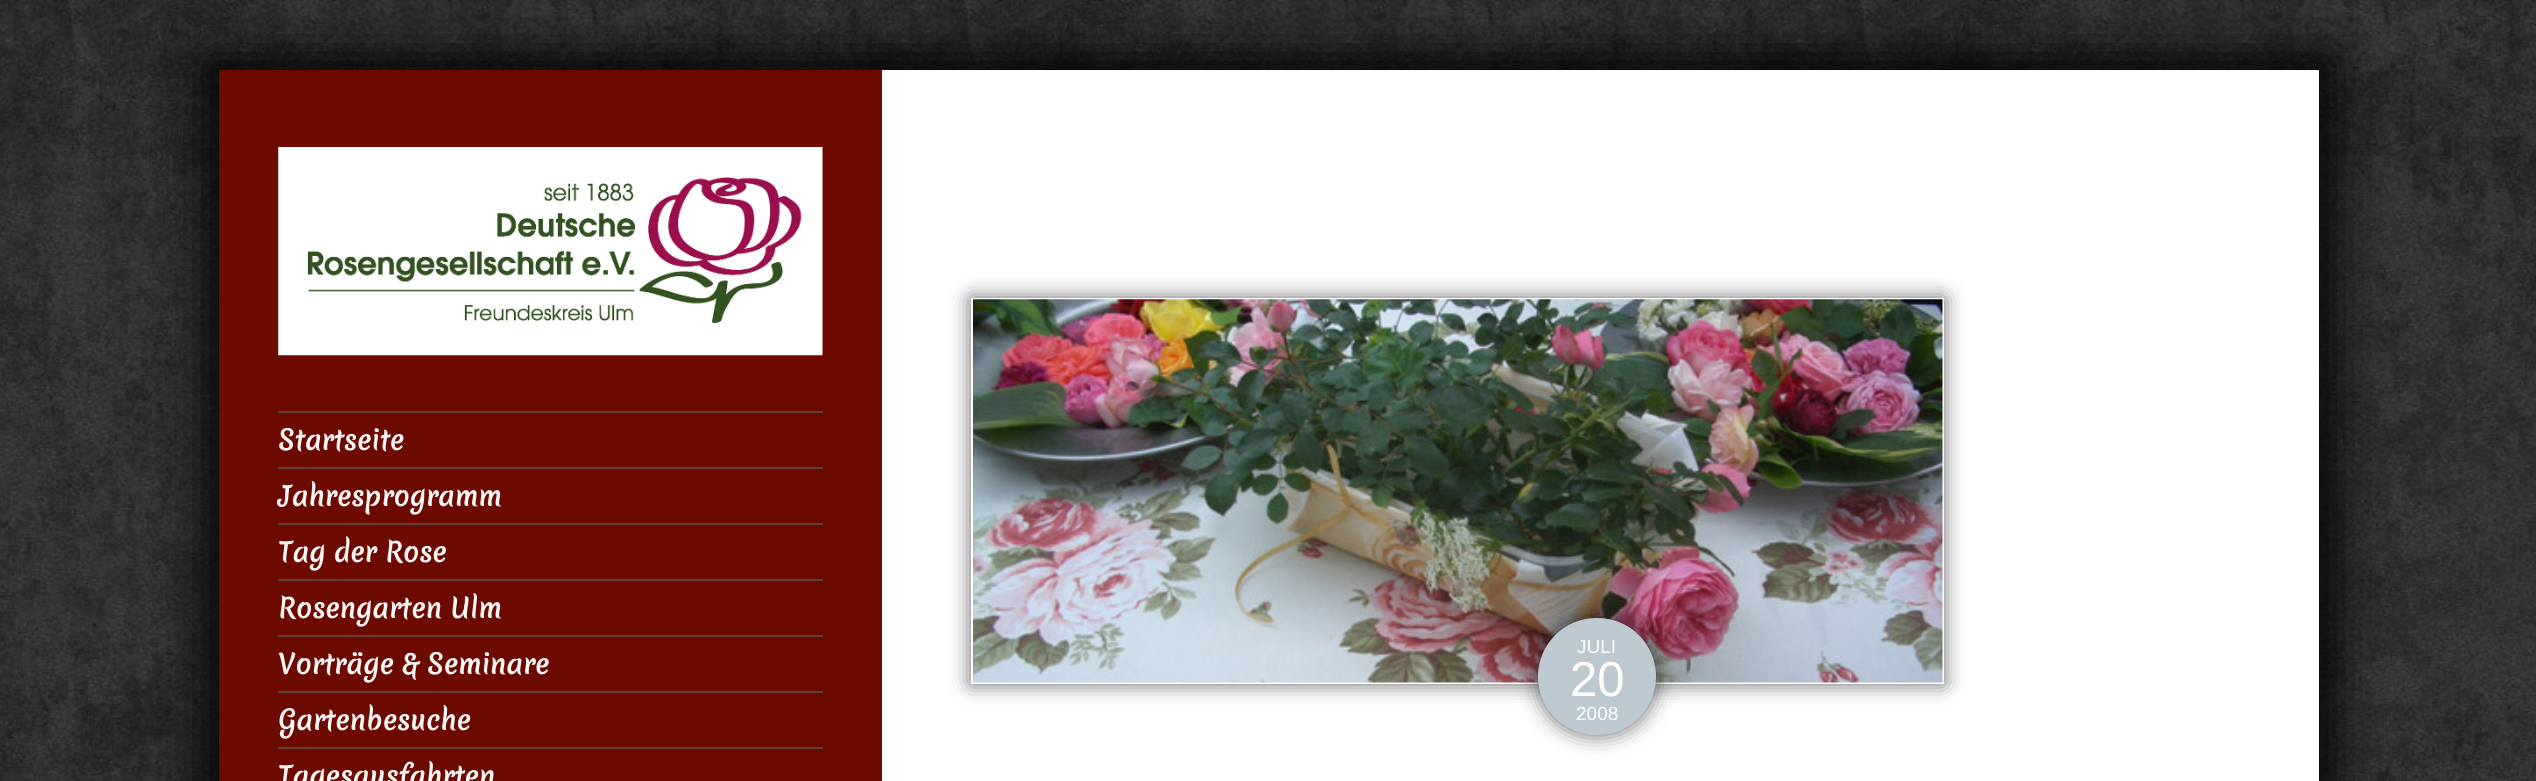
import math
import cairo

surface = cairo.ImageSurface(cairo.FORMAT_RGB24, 2536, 781)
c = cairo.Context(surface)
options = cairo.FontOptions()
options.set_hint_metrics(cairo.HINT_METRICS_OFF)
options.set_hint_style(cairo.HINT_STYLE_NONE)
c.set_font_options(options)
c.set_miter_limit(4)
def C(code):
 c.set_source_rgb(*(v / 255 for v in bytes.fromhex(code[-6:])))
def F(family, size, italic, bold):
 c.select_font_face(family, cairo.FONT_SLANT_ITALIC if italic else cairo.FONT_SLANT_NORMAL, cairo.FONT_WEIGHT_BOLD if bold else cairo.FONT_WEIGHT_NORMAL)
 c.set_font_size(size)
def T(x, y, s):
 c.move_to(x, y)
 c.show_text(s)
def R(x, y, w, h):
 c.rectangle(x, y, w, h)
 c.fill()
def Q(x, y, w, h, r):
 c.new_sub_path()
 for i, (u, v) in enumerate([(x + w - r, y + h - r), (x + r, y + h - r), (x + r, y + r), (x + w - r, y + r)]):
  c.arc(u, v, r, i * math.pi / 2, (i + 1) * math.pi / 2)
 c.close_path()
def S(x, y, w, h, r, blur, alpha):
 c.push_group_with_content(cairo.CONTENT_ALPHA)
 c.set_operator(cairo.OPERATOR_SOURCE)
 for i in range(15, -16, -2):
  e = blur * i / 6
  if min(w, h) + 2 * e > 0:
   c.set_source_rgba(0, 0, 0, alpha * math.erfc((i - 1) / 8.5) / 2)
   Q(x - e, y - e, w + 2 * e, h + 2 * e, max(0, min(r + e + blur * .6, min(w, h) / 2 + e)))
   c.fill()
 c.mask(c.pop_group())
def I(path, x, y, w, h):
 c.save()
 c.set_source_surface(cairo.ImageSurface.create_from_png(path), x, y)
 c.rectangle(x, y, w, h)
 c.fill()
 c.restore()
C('ffffff')
c.paint()
I('1.png',0,0,2536,781)
C('000000')
S(205,56,2128,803,0,26,1)
C('ffffff')
R(882,70,1437,711)
C('6d0a00')
R(219,70,663,711)
I('2.png',278,147,545,209)
C('5e4040')
R(278,411,545,2)
R(278,467,545,2)
F('Merienda',26.25,0,1)
C('f5f5f5')
T(278,450,'Startseite')
C('5e4040')
R(278,523,545,2)
C('f5f5f5')
T(278,506,'Jahresprogramm')
C('5e4040')
R(278,579,545,2)
C('f5f5f5')
T(278,562,'Tag der Rose')
C('5e4040')
R(278,635,545,2)
C('f5f5f5')
T(278,618,'Rosengarten Ulm')
C('5e4040')
R(278,691,545,2)
C('f5f5f5')
T(278,674,'Vorträge & Seminare')
C('5e4040')
R(278,747,545,2)
C('f5f5f5')
T(278,730,'Gartenbesuche')
T(278,786,'Tagesausfahrten')
C('000000')
S(971,298,973,386,0,10.5,.6)
c.rectangle(972,299,971,384)
C('ffffff')
c.stroke()
I('3.png',973,299,970,384)
C('000000')
S(1538,618,118,117,58.5,10.5,.6)
C('bcc9d1')
Q(1538,618,118,117,58.5)
c.fill()
F('Liberation Sans',19,0,0)
C('ffffff')
T(1577,653,'JULI')
F('Liberation Sans',49,0,0)
T(1570,696,'20')
F('Liberation Sans',19,0,0)
T(1576,720,'2008')
surface.write_to_png('o.png')
